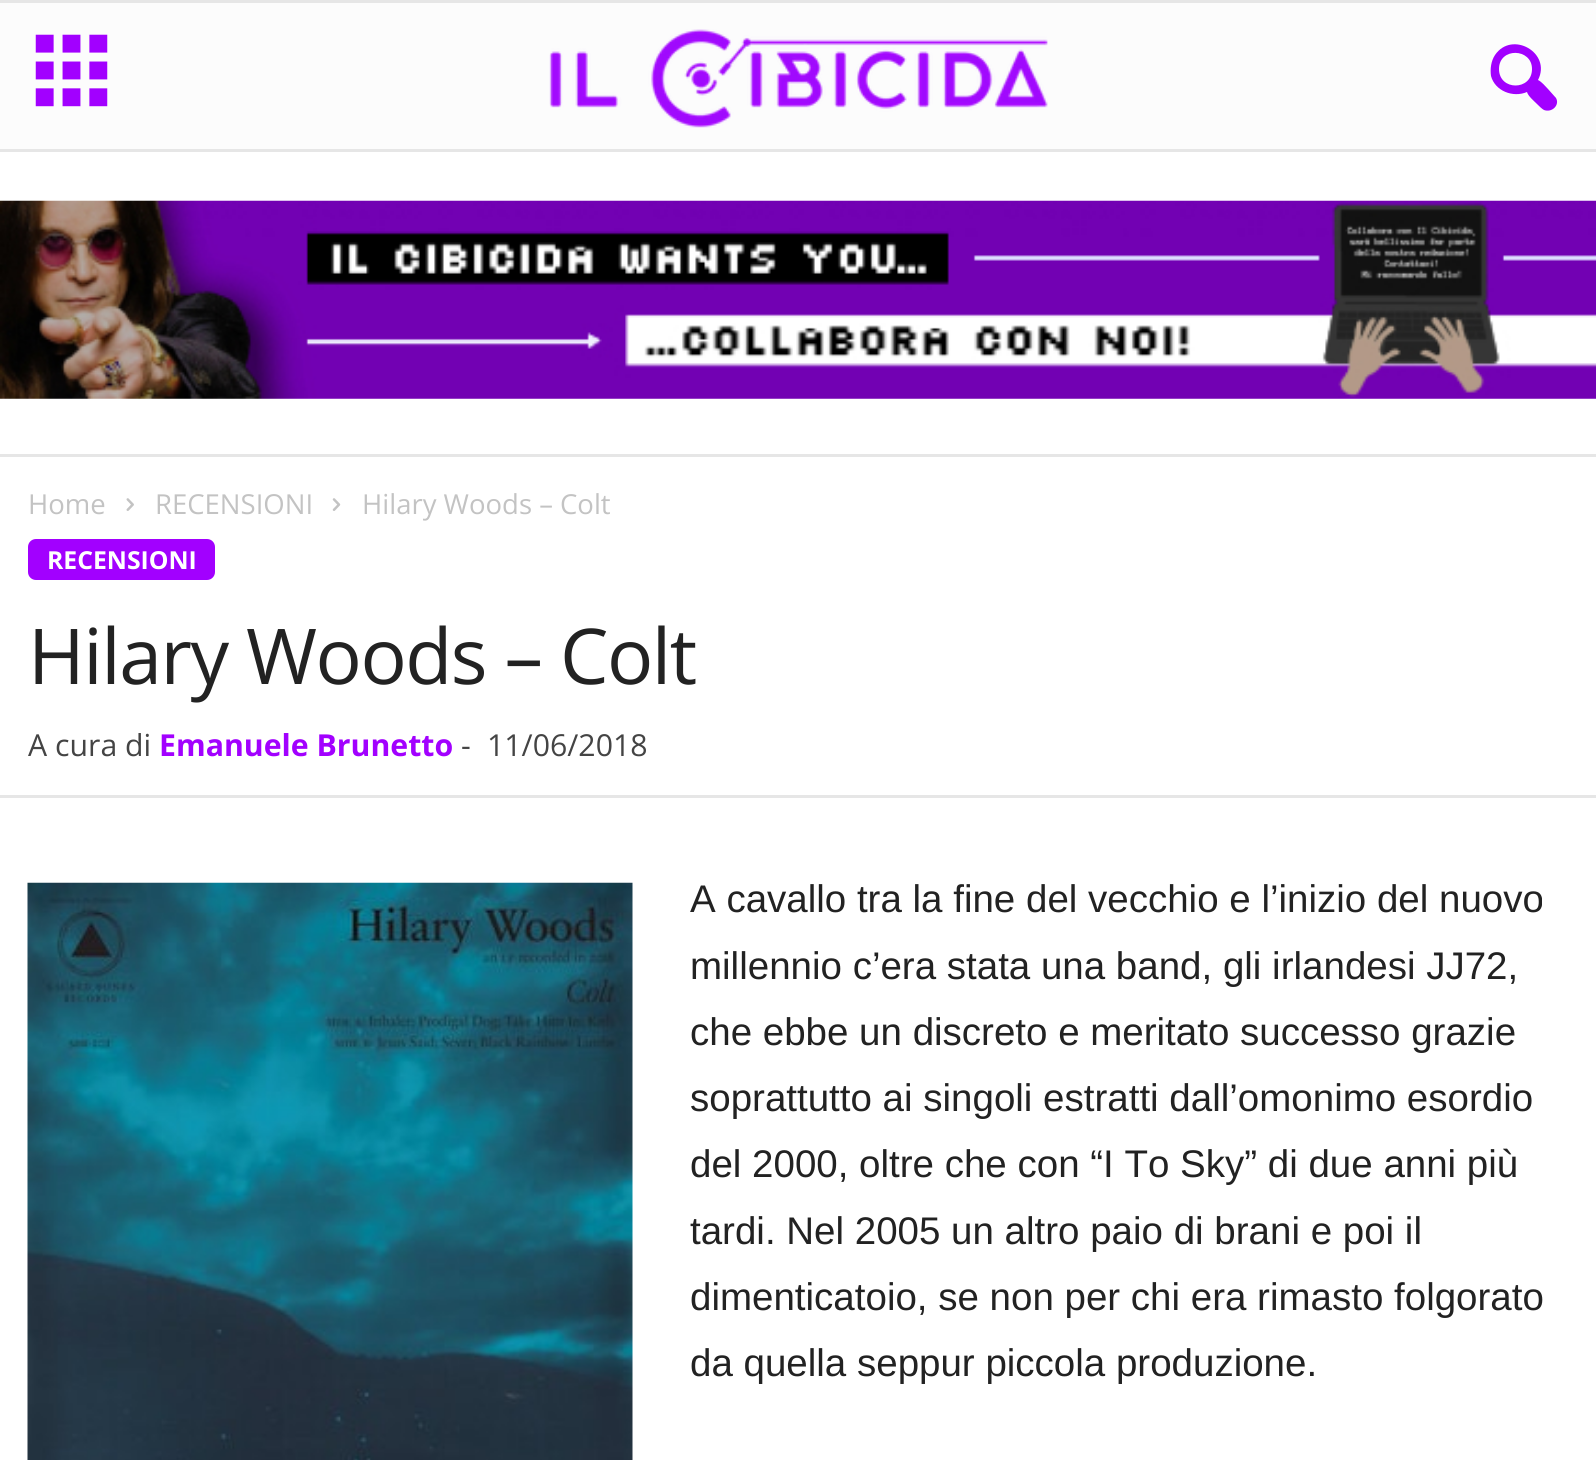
import math
import cairo

surface = cairo.ImageSurface(cairo.FORMAT_RGB24, 1596, 1460)
c = cairo.Context(surface)
options = cairo.FontOptions()
options.set_hint_metrics(cairo.HINT_METRICS_OFF)
options.set_hint_style(cairo.HINT_STYLE_NONE)
c.set_font_options(options)
c.set_miter_limit(4)
def C(code):
 c.set_source_rgb(*(v / 255 for v in bytes.fromhex(code[-6:])))
def F(family, size, italic, bold):
 c.select_font_face(family, cairo.FONT_SLANT_ITALIC if italic else cairo.FONT_SLANT_NORMAL, cairo.FONT_WEIGHT_BOLD if bold else cairo.FONT_WEIGHT_NORMAL)
 c.set_font_size(size)
def T(x, y, s):
 c.move_to(x, y)
 c.show_text(s)
def L(x, y, s, letter, word):
 c.move_to(x, y)
 for ch in s:
  c.show_text(ch)
  c.rel_move_to(letter + word * (ch == ' '), 0)
def R(x, y, w, h):
 c.rectangle(x, y, w, h)
 c.fill()
def Q(x, y, w, h, r):
 c.new_sub_path()
 for i, (u, v) in enumerate([(x + w - r, y + h - r), (x + r, y + h - r), (x + r, y + r), (x + w - r, y + r)]):
  c.arc(u, v, r, i * math.pi / 2, (i + 1) * math.pi / 2)
 c.close_path()
def I(path, x, y, w, h):
 c.save()
 c.set_source_surface(cairo.ImageSurface.create_from_png(path), x, y)
 c.rectangle(x, y, w, h)
 c.fill()
 c.restore()
C('ffffff')
c.paint()
C('fcfcfc')
R(0,3,1596,146)
C('e6e6e6')
R(0,0,1596,3)
R(0,149,1596,3)
I('1.png',35,34,73,73)
I('2.png',549,29,499,99)
C('a200ff')
c.new_path()
c.move_to(1491,76)
c.curve_to(1490,69,1491,61,1495,55)
c.curve_to(1512,30,1552,53,1538,80)
c.curve_to(1542,82,1545,86,1548,89)
c.line_to(1556,98)
c.curve_to(1560,105,1552,113,1544,110)
c.curve_to(1542,109,1539,106,1537,104)
c.curve_to(1534,101,1528,96,1527,92)
c.curve_to(1513,98,1495,91,1491,76)
c.close_path()
c.move_to(1499,69)
c.curve_to(1499,91,1532,91,1532,69)
c.curve_to(1532,48,1499,47,1499,69)
c.close_path()
c.fill()
C('e6e6e6')
R(0,454,1596,3)
I('3.png',0,200,1596,199)
F('Open Sans',27.5,0,0)
C('c3c3c3')
T(28,514,'Home')
I('4.png',126,498,8,13)
T(155,514,'RECENSIONI')
I('5.png',332,498,9,13)
T(362,514,'Hilary Woods – Colt')
C('a200ff')
Q(28,539,187,41,8)
c.fill()
F('Open Sans',24.75,0,1)
C('ffffff')
T(47,569,'RECENSIONI')
F('Open Sans',77,0,0)
C('222222')
L(28,684,'Hilary Woods – Colt',-1.5,0)
F('Open Sans',30.25,0,0)
C('444444')
T(28,756,'A cura di')
F('Open Sans',30.25,0,1)
C('a200ff')
T(159,756,'Emanuele Brunetto')
F('Open Sans',30.25,0,0)
C('444444')
T(461,756,'-')
T(487,756,'11/06/2018')
C('e6e6e6')
R(0,795,1596,3)
I('6.png',27,882,606,578)
F('Liberation Sans',38.5,0,0)
C('222222')
T(690,912,'A cavallo tra la fine del vecchio e l’inizio del nuovo')
T(690,979,'millennio c’era stata una band, gli irlandesi JJ72,')
T(690,1045,'che ebbe un discreto e meritato successo grazie')
T(690,1111,'soprattutto ai singoli estratti dall’omonimo esordio')
T(690,1177,'del 2000, oltre che con “I To Sky” di due anni più')
T(690,1244,'tardi. Nel 2005 un altro paio di brani e poi il')
T(690,1310,'dimenticatoio, se non per chi era rimasto folgorato')
T(690,1376,'da quella seppur piccola produzione.')
surface.write_to_png('o.png')
